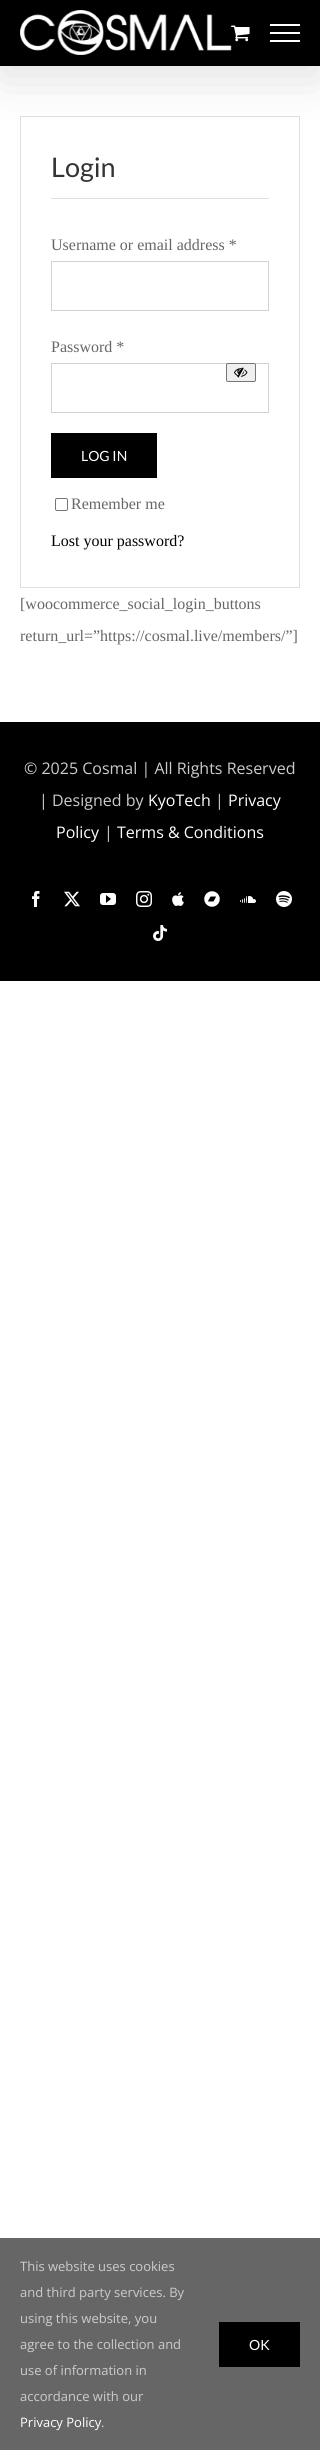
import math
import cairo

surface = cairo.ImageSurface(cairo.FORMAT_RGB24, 320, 2450)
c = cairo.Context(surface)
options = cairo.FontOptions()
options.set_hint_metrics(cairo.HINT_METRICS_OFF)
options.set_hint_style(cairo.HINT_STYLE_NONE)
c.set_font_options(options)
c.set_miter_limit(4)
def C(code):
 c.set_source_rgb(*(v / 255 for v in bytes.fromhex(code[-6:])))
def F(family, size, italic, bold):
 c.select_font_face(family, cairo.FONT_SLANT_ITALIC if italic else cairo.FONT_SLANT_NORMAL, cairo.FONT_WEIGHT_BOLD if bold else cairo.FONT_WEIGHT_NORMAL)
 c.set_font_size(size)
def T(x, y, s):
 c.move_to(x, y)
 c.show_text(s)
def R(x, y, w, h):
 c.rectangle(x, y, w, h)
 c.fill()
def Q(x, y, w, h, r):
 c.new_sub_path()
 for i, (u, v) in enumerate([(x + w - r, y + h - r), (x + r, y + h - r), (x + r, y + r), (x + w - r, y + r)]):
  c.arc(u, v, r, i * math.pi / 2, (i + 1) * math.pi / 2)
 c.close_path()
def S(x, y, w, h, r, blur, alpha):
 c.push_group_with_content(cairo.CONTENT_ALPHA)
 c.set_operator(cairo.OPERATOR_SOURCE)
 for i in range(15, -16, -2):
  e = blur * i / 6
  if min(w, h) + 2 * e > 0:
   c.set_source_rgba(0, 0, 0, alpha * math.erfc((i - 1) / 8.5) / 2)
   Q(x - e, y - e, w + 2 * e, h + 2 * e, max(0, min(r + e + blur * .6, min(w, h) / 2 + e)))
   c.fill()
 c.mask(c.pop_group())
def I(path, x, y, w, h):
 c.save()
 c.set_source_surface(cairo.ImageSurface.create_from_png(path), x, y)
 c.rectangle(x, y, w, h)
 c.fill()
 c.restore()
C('ffffff')
c.paint()
c.rectangle(20.5,116.5,279,471)
C('e0dede')
c.set_line_width(1)
c.stroke()
C('000000')
S(2,12,316,62,0,25,.14)
C('000000')
R(0,0,320,66)
I('1.png',20,10,212,45)
I('2.png',231,25,19,17)
C('ffffff')
R(270,24,30,2)
R(270,32,30,2)
R(270,40,30,2)
C('e0dede')
R(51,198,218,1)
F('Lato',27,0,0)
C('333333')
T(51,177,'Login')
F('Liberation Serif',16,0,0)
C('666666')
T(51,250,'Username or email address *')
c.rectangle(51.5,261.5,217,49)
C('d2d2d2')
c.stroke()
C('666666')
T(51,352,'Password *')
c.rectangle(51.5,363.5,217,49)
C('d2d2d2')
c.stroke()
C('efefef')
Q(226.5,363.5,29,18,1.5)
c.fill_preserve()
C('767676')
c.stroke()
I('3.png',234,367,14,11)
C('000000')
R(51,433,106,45)
F('Lato',14,0,0)
C('ffffff')
T(81,461,'LOG IN')
Q(55.5,498.5,12,12,1.5)
C('767676')
c.stroke()
F('Liberation Serif',16,0,0)
C('666666')
T(71,509,'Remember me')
C('000000')
T(51,546,'Lost your password?')
C('666666')
T(20,609,'[woocommerce_social_login_buttons')
T(20,641,'return_url=”https://cosmal.live/members/”]')
C('000000')
R(0,722,320,259)
F('Open Sans',16,0,0)
C('cccccc')
T(24,774,'© 2025 Cosmal | All Rights Reserved')
T(39,806,'| Designed by')
C('ffffff')
T(148,806,'KyoTech')
C('cccccc')
T(215,806,'|')
C('ffffff')
T(228,806,'Privacy')
T(56,838,'Policy')
C('cccccc')
T(104,838,'|')
C('ffffff')
T(117,838,'Terms & Conditions')
I('4.png',32,891,8,16)
I('5.png',64,891,16,16)
I('6.png',100,893,16,12)
I('7.png',136,891,16,16)
I('8.png',172,892,12,14)
I('9.png',204,891,16,16)
I('10.png',240,896,16,7)
I('11.png',276,891,16,16)
I('12.png',153,925,14,16)
C('666666')
R(0,2238,320,212)
F('Open Sans',13,0,0)
C('cccccc')
T(20,2271,'This website uses cookies')
T(20,2297,'and third party services. By')
T(20,2323,'using this website, you')
T(20,2349,'agree to the collection and')
T(20,2375,'use of information in')
T(20,2401,'accordance with our')
C('ffffff')
T(20,2427,'Privacy Policy')
C('cccccc')
T(101,2427,'.')
C('000000')
R(219,2322,81,45)
F('Lato',14,0,0)
C('ffffff')
T(249,2350,'OK')
surface.write_to_png('o.png')
